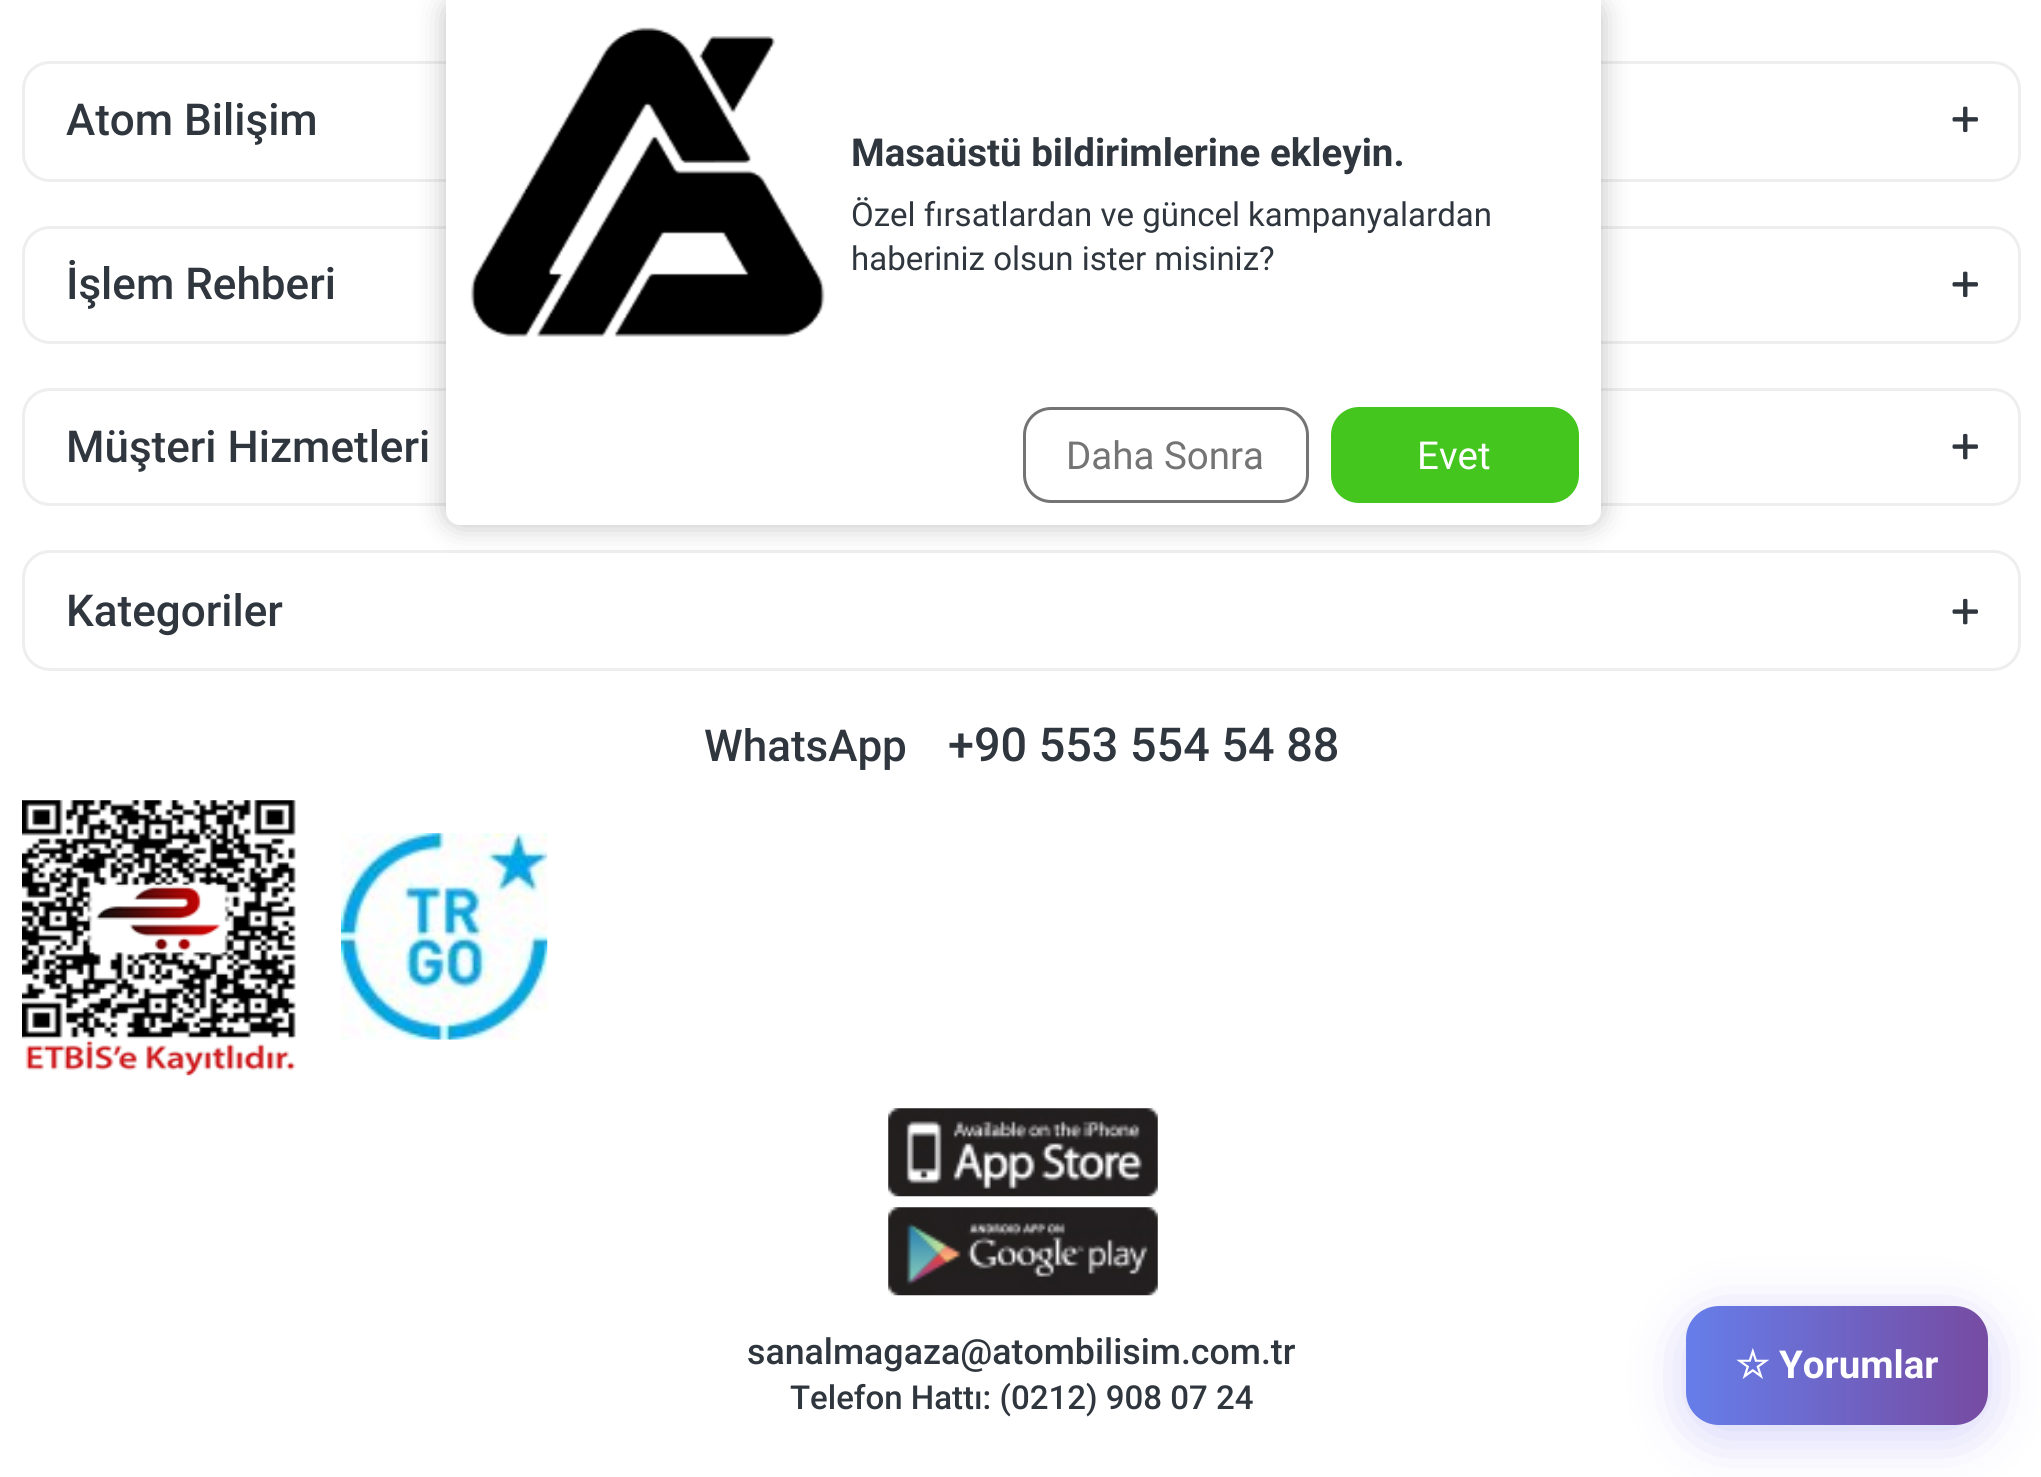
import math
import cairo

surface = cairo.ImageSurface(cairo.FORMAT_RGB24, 2041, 1477)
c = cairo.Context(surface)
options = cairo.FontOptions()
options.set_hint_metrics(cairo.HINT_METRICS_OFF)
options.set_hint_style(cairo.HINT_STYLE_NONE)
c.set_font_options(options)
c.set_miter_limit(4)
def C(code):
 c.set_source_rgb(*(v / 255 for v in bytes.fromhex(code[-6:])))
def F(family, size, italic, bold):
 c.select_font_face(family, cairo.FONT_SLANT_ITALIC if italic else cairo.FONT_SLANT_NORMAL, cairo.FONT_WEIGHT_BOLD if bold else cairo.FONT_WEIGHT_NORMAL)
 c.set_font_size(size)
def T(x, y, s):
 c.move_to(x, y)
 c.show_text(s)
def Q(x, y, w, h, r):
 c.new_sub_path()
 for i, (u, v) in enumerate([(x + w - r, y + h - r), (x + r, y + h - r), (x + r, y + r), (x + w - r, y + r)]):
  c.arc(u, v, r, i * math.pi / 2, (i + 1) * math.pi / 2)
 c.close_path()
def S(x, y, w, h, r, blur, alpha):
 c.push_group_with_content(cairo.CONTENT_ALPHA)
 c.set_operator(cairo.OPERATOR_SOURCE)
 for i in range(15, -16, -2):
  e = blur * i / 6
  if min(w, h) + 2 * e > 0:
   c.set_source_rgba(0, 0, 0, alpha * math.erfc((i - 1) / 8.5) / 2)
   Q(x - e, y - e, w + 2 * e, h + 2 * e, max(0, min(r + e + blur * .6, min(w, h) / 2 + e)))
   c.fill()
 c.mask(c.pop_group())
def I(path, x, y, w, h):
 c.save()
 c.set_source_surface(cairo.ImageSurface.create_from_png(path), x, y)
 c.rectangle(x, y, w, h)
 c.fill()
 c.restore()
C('ffffff')
c.paint()
Q(23.5,62.5,1996,118,26.5)
C('eeeeee')
c.set_line_width(3)
c.stroke()
F('Roboto Medium',44,0,0)
C('2f363e')
T(66,135,'Atom Bilişim')
I('1.png',1952,106,26,27)
Q(23.5,227.5,1996,115,26.5)
C('eeeeee')
c.stroke()
C('2f363e')
T(66,299,'İşlem Rehberi')
I('1.png',1952,271,26,27)
Q(23.5,389.5,1996,115,26.5)
C('eeeeee')
c.stroke()
C('2f363e')
T(66,462,'Müşteri Hizmetleri')
I('2.png',1952,433,26,27)
Q(23.5,551.5,1996,118,26.5)
C('eeeeee')
c.stroke()
C('2f363e')
T(66,626,'Kategoriler')
I('2.png',1952,598,26,27)
T(704,761,'WhatsApp')
F('Roboto Medium',46.75,0,0)
T(948,761,'+90 553 554 54 88')
I('3.png',22,800,274,276)
I('4.png',341,833,207,207)
I('5.png',888,1108,270,89)
I('6.png',888,1207,270,89)
F('Roboto Medium',35.75,0,0)
T(747,1364,'sanalmagaza@atombilisim.com.tr')
F('Roboto Medium',33,0,0)
T(790,1409,'Telefon Hattı: (0212) 908 07 24')
C('282828')
S(446,0,1155,525,14,14,.3)
C('ffffff')
c.new_path()
c.move_to(446,0)
c.line_to(1601,0)
c.line_to(1601,511)
c.curve_to(1601,518.5,1594.5,525,1587,525)
c.line_to(460,525)
c.curve_to(452.5,525,446,518.5,446,511)
c.close_path()
c.fill()
I('7.png',470,27,355,310)
F('Roboto',38.5,0,1)
C('2f363e')
T(851,166,'Masaüstü bildirimlerine ekleyin.')
F('Roboto',33,0,0)
T(851,226,'Özel fırsatlardan ve güncel kampanyalardan')
T(851,270,'haberiniz olsun ister misiniz?')
Q(1024.5,408.5,283,93,26.5)
C('747474')
c.stroke()
F('Roboto',38.5,0,0)
T(1066,469,'Daha Sonra')
C('44c61f')
Q(1332.5,408.5,245,93,26.5)
c.fill_preserve()
c.stroke()
C('ffffff')
T(1417,469,'Evet')
C('4f46e5')
S(1686,1317,302,119,33,27.5,.25)
gradient = cairo.LinearGradient(1686,1365,1988,1365)
gradient.add_color_stop_rgba(0,0.4,0.494,0.918,1)
gradient.add_color_stop_rgba(1,0.463,0.294,0.635,1)
c.set_source(gradient)
Q(1686,1306,302,119,33)
c.fill()
F('DejaVu Sans',38.5,0,1)
C('ffffff')
T(1735,1378,'☆')
F('Roboto',38.5,0,1)
T(1779,1378,'Yorumlar')
surface.write_to_png('o.png')
